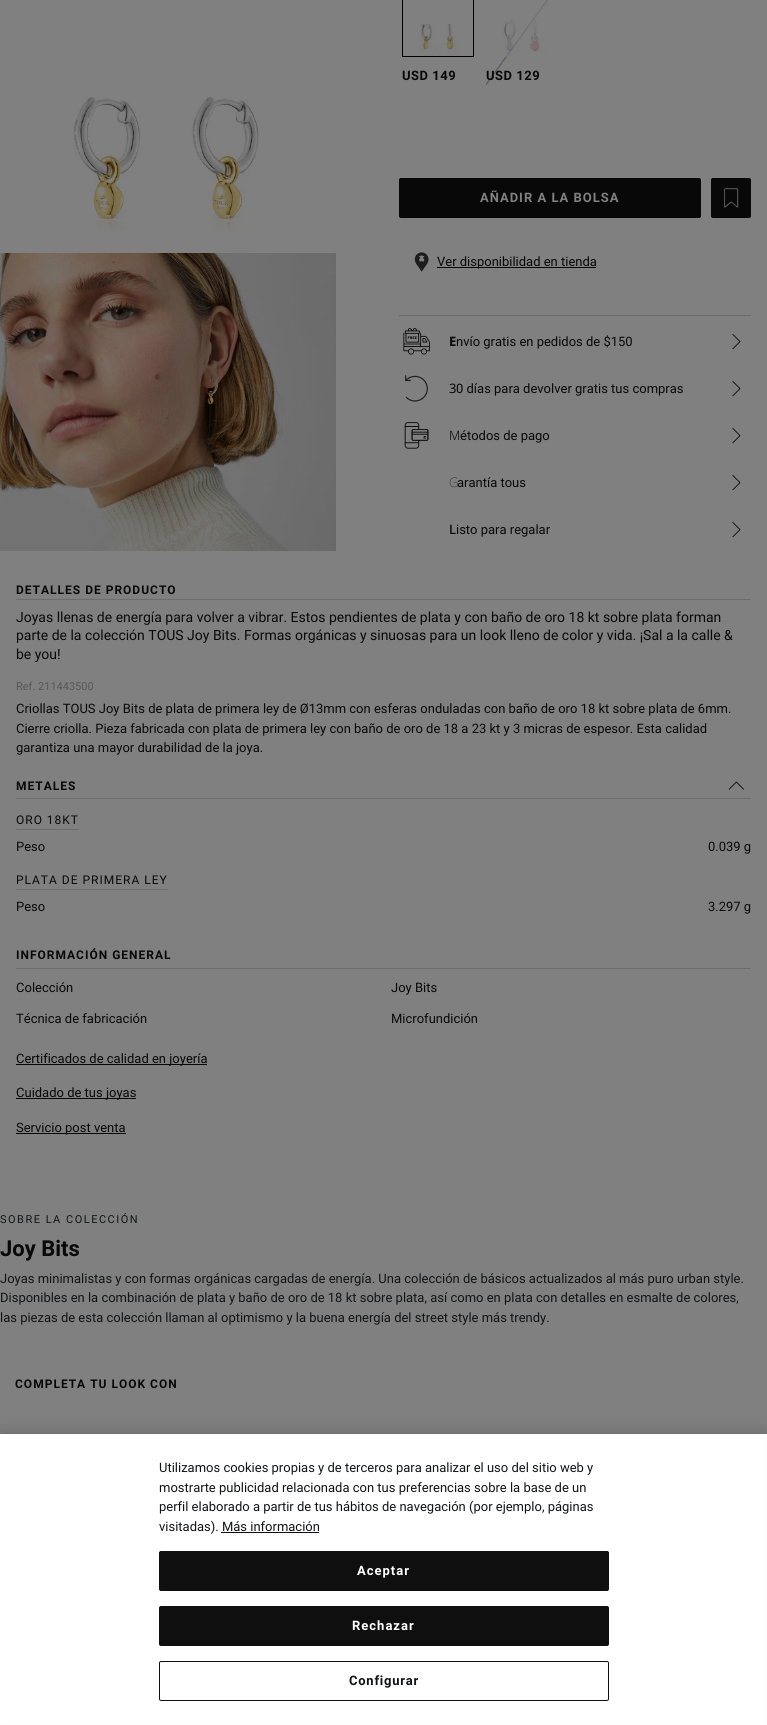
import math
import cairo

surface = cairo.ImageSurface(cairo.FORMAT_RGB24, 767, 1725)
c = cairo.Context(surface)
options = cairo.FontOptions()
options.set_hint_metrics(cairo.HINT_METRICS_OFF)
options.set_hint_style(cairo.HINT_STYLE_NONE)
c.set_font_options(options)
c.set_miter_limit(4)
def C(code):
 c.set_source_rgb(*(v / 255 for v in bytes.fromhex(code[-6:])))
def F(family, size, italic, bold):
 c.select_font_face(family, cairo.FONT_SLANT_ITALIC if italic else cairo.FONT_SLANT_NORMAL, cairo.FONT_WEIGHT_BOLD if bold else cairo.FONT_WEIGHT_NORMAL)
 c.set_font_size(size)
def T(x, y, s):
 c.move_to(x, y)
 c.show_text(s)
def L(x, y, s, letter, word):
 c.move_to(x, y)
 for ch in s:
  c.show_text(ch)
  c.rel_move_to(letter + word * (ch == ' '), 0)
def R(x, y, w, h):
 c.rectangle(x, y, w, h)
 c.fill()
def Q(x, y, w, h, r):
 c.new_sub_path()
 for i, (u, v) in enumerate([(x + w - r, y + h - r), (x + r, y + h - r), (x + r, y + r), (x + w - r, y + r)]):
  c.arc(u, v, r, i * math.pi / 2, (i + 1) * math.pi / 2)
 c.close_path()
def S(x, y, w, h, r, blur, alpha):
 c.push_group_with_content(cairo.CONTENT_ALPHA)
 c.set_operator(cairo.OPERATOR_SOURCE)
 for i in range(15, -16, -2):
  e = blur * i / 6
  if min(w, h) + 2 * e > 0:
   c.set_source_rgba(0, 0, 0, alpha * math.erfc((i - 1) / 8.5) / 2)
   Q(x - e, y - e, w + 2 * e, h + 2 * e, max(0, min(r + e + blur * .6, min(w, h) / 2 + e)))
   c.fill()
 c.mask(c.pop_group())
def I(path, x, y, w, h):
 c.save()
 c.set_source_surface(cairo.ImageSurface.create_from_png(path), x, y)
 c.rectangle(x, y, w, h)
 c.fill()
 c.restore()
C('808080')
c.paint()
I('1.png',73,97,186,135)
I('2.png',0,253,336,298)
c.rectangle(402.5,-.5,71,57)
C('000000')
c.set_line_width(1)
c.stroke()
I('3.png',420,24,39,32)
F('Roboto',13,0,1)
C('080808')
L(402,80,'USD 149',.5,0)
gradient = cairo.LinearGradient(569,69,475,.9)
gradient.add_color_stop_rgba(0,0.502,0.502,0.502,1)
gradient.add_color_stop_rgba(.49,0.502,0.502,0.502,1)
gradient.add_color_stop_rgba(.5,0.341,0.341,0.341,1)
gradient.add_color_stop_rgba(.51,0.502,0.502,0.502,1)
gradient.add_color_stop_rgba(1,0.502,0.502,0.502,1)
c.set_source(gradient)
R(486,0,62,85)
I('4.png',503,0,45,57)
C('080808')
L(486,80,'USD 129',.5,0)
Q(399.5,178.5,301,39,1.5)
c.fill_preserve()
c.stroke()
C('808080')
L(480,202,'AÑADIR A LA BOLSA',1,0)
C('080808')
Q(711.5,178.5,39,39,1.5)
c.fill_preserve()
c.stroke()
I('5.png',724,188,15,20)
I('6.png',414,252,15,20)
R(437,267,159,1)
F('Roboto',13,0,0)
T(437,266,'Ver disponibilidad en tienda')
C('6c6c6c')
R(399,315,352,1)
I('7.png',403,328,27,27)
F('Noto Sans',13,0,1)
C('080808')
T(449,346,'E')
F('Roboto',13,0,0)
T(456,346,'nvío gratis en pedidos de $150')
I('8.png',732,334,9,16)
I('9.png',405,375,23,27)
F('Noto Sans',13,0,0)
T(449,393,'3')
F('Roboto',13,0,0)
T(456,393,'0 días para devolver gratis tus compras')
I('8.png',732,381,9,16)
I('10.png',404,422,25,27)
F('Noto Sans Light',13,0,0)
T(449,440,'M')
F('Roboto',13,0,0)
T(460,440,'étodos de pago')
I('8.png',732,428,9,16)
F('Noto Sans Thin',13,0,0)
T(449,487,'G')
F('Roboto',13,0,0)
T(457,487,'arantía tous')
I('8.png',732,475,9,16)
F('Noto Sans Medium',13,0,0)
T(449,534,'L')
F('Roboto',13,0,0)
T(456,534,'isto para regalar')
I('8.png',732,522,9,16)
C('6c6c6c')
R(16,599,735,1)
F('Roboto',12,0,1)
C('080808')
L(16,594,'DETALLES DE PRODUCTO',1,0)
F('Roboto',14,0,0)
T(16,622,'Joyas llenas de energía para volver a vibrar. Estos pendientes de plata y con baño de oro 18 kt sobre plata forman')
T(16,640,'parte de la colección TOUS Joy Bits. Formas orgánicas y sinuosas para un look lleno de color y vida. ¡Sal a la calle &')
T(16,659,'be you!')
F('Roboto',11,0,0)
C('575757')
T(16,690,'Ref. 211443500')
F('Roboto',13,0,0)
C('080808')
T(16,713,'Criollas TOUS Joy Bits de plata de primera ley de Ø13mm con esferas onduladas con baño de oro 18 kt sobre plata de 6mm.')
T(16,733,'Cierre criolla. Pieza fabricada con plata de primera ley con baño de oro de 18 a 23 kt y 3 micras de espesor. Esta calidad')
T(16,752,'garantiza una mayor durabilidad de la joya.')
C('6c6c6c')
R(16,798,735,1)
F('Roboto',12,0,1)
C('080808')
L(16,790,'METALES',1,0)
I('11.png',728,781,16,9)
C('6c6c6c')
R(16,829,63,1)
F('Roboto',12,0,0)
C('080808')
L(16,824,'ORO 18KT',1,0)
F('Roboto',13,0,0)
T(16,851,'Peso')
T(708,851,'0.039 g')
C('6c6c6c')
R(16,889,152,1)
F('Roboto',12,0,0)
C('080808')
L(16,884,'PLATA DE PRIMERA LEY',1,0)
F('Roboto',13,0,0)
T(16,911,'Peso')
T(708,911,'3.297 g')
C('6c6c6c')
R(16,968,735,1)
F('Roboto',12,0,1)
C('080808')
L(16,959,'INFORMACIÓN GENERAL',1,0)
F('Roboto',13,0,0)
T(16,992,'Colección')
T(391,992,'Joy Bits')
T(16,1023,'Técnica de fabricación')
T(391,1023,'Microfundición')
R(16,1064,191,1)
T(16,1063,'Certificados de calidad en joyería')
R(16,1098,120,1)
T(16,1097,'Cuidado de tus joyas')
R(16,1133,110,1)
T(16,1132,'Servicio post venta')
F('Roboto',11,0,0)
C('111315')
L(0,1223,'SOBRE LA COLECCIÓN',1.5,0)
F('Roboto',22,0,1)
C('080808')
T(0,1256,'Joy Bits')
F('Roboto',13,0,0)
C('111315')
T(0,1283,'Joyas minimalistas y con formas orgánicas cargadas de energía. Una colección de básicos actualizados al más puro urban style.')
T(0,1302,'Disponibles en la combinación de plata y baño de oro de 18 kt sobre plata, así como en plata con detalles en esmalte de colores,')
T(0,1322,'las piezas de esta colección llaman al optimismo y la buena energía del street style más trendy.')
F('Roboto',12,0,1)
C('080808')
L(15,1388,'COMPLETA TU LOOK CON',1,0)
C('000000')
S(0,1434,767,291,0,9,.2)
C('ffffff')
c.rectangle(.5,1434.5,766,290)
c.fill_preserve()
C('fdfdfe')
c.stroke()
F('Roboto',13,0,0)
C('111315')
T(159,1472,'Utilizamos cookies propias y de terceros para analizar el uso del sitio web y')
T(159,1492,'mostrarte publicidad relacionada con tus preferencias sobre la base de un')
T(159,1511,'perfil elaborado a partir de tus hábitos de navegación (por ejemplo, páginas')
T(159,1531,'visitadas). Más información')
C('0f0f10')
R(221,1532,98,1)
Q(159.5,1551.5,449,39,1.5)
c.fill_preserve()
c.stroke()
F('Roboto',13,0,1)
C('ffffff')
L(357,1575,'Aceptar',1,0)
C('0f0f10')
Q(159.5,1606.5,449,39,1.5)
c.fill_preserve()
c.stroke()
C('ffffff')
L(352,1630,'Rechazar',1,0)
Q(159.5,1661.5,449,39,1.5)
C('0f0f10')
c.stroke()
C('111315')
L(349,1685,'Configurar',.75,0)
surface.write_to_png('o.png')
